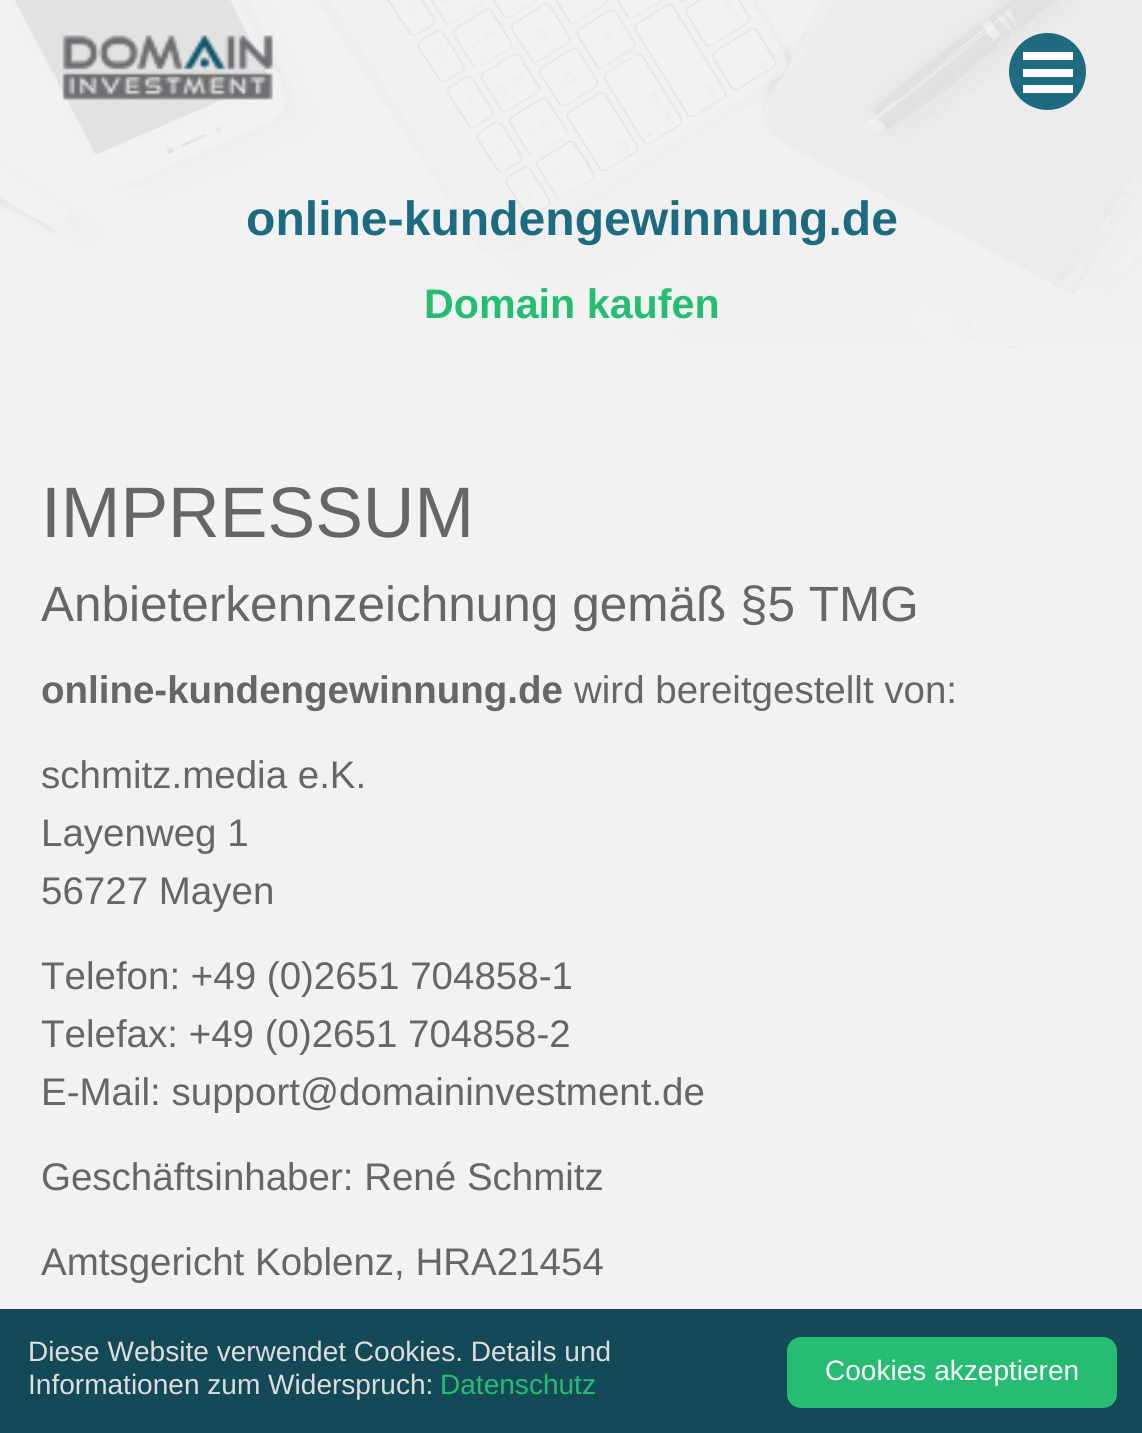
import math
import cairo

surface = cairo.ImageSurface(cairo.FORMAT_RGB24, 1142, 1433)
c = cairo.Context(surface)
options = cairo.FontOptions()
options.set_hint_metrics(cairo.HINT_METRICS_OFF)
options.set_hint_style(cairo.HINT_STYLE_NONE)
c.set_font_options(options)
c.set_miter_limit(4)
def C(code):
 c.set_source_rgb(*(v / 255 for v in bytes.fromhex(code[-6:])))
def F(family, size, italic, bold):
 c.select_font_face(family, cairo.FONT_SLANT_ITALIC if italic else cairo.FONT_SLANT_NORMAL, cairo.FONT_WEIGHT_BOLD if bold else cairo.FONT_WEIGHT_NORMAL)
 c.set_font_size(size)
def T(x, y, s):
 c.move_to(x, y)
 c.show_text(s)
def R(x, y, w, h):
 c.rectangle(x, y, w, h)
 c.fill()
def Q(x, y, w, h, r):
 c.new_sub_path()
 for i, (u, v) in enumerate([(x + w - r, y + h - r), (x + r, y + h - r), (x + r, y + r), (x + w - r, y + r)]):
  c.arc(u, v, r, i * math.pi / 2, (i + 1) * math.pi / 2)
 c.close_path()
def I(path, x, y, w, h):
 c.save()
 c.set_source_surface(cairo.ImageSurface.create_from_png(path), x, y)
 c.rectangle(x, y, w, h)
 c.fill()
 c.restore()
C('f2f2f2')
c.paint()
I('1.png',0,0,1142,348)
I('2.png',62,35,212,65)
C('1d6a81')
c.arc(1047.5,71.5,38.5,0,2 * math.pi)
c.fill()
C('ffffff')
R(1023,69,50,8)
R(1023,52,50,8)
R(1023,85,50,8)
F('Liberation Sans',48.1,0,1)
C('1d6a81')
T(246,235,'online-kundengewinnung.de')
F('Liberation Sans',41.25,0,1)
C('26bd73')
T(424,318,'Domain kaufen')
F('Liberation Sans',71.5,0,0)
C('666666')
T(41,537,'IMPRESSUM')
F('Liberation Sans',49.5,0,0)
T(41,621,'Anbieterkennzeichnung gemäß §5 TMG')
F('Liberation Sans',38.5,0,1)
T(41,703,'online-kundengewinnung.de')
F('Liberation Sans',38.5,0,0)
T(574,703,'wird bereitgestellt von:')
T(41,788,'schmitz.media e.K.')
T(41,846,'Layenweg 1')
T(41,904,'56727 Mayen')
T(41,989,'Telefon: +49 (0)2651 704858-1')
T(41,1047,'Telefax: +49 (0)2651 704858-2')
T(41,1105,'E-Mail: support@domaininvestment.de')
T(41,1190,'Geschäftsinhaber: René Schmitz')
T(41,1275,'Amtsgericht Koblenz, HRA21454')
C('144958')
R(0,1309,1142,124)
F('Liberation Sans',28.05,0,0)
C('dddddd')
T(28,1361,'Diese Website verwendet Cookies. Details und')
T(28,1394,'Informationen zum Widerspruch:')
C('26bd73')
T(440,1394,'Datenschutz')
Q(787,1337,330,71,14)
c.fill()
C('ffffff')
T(825,1380,'Cookies akzeptieren')
surface.write_to_png('o.png')
